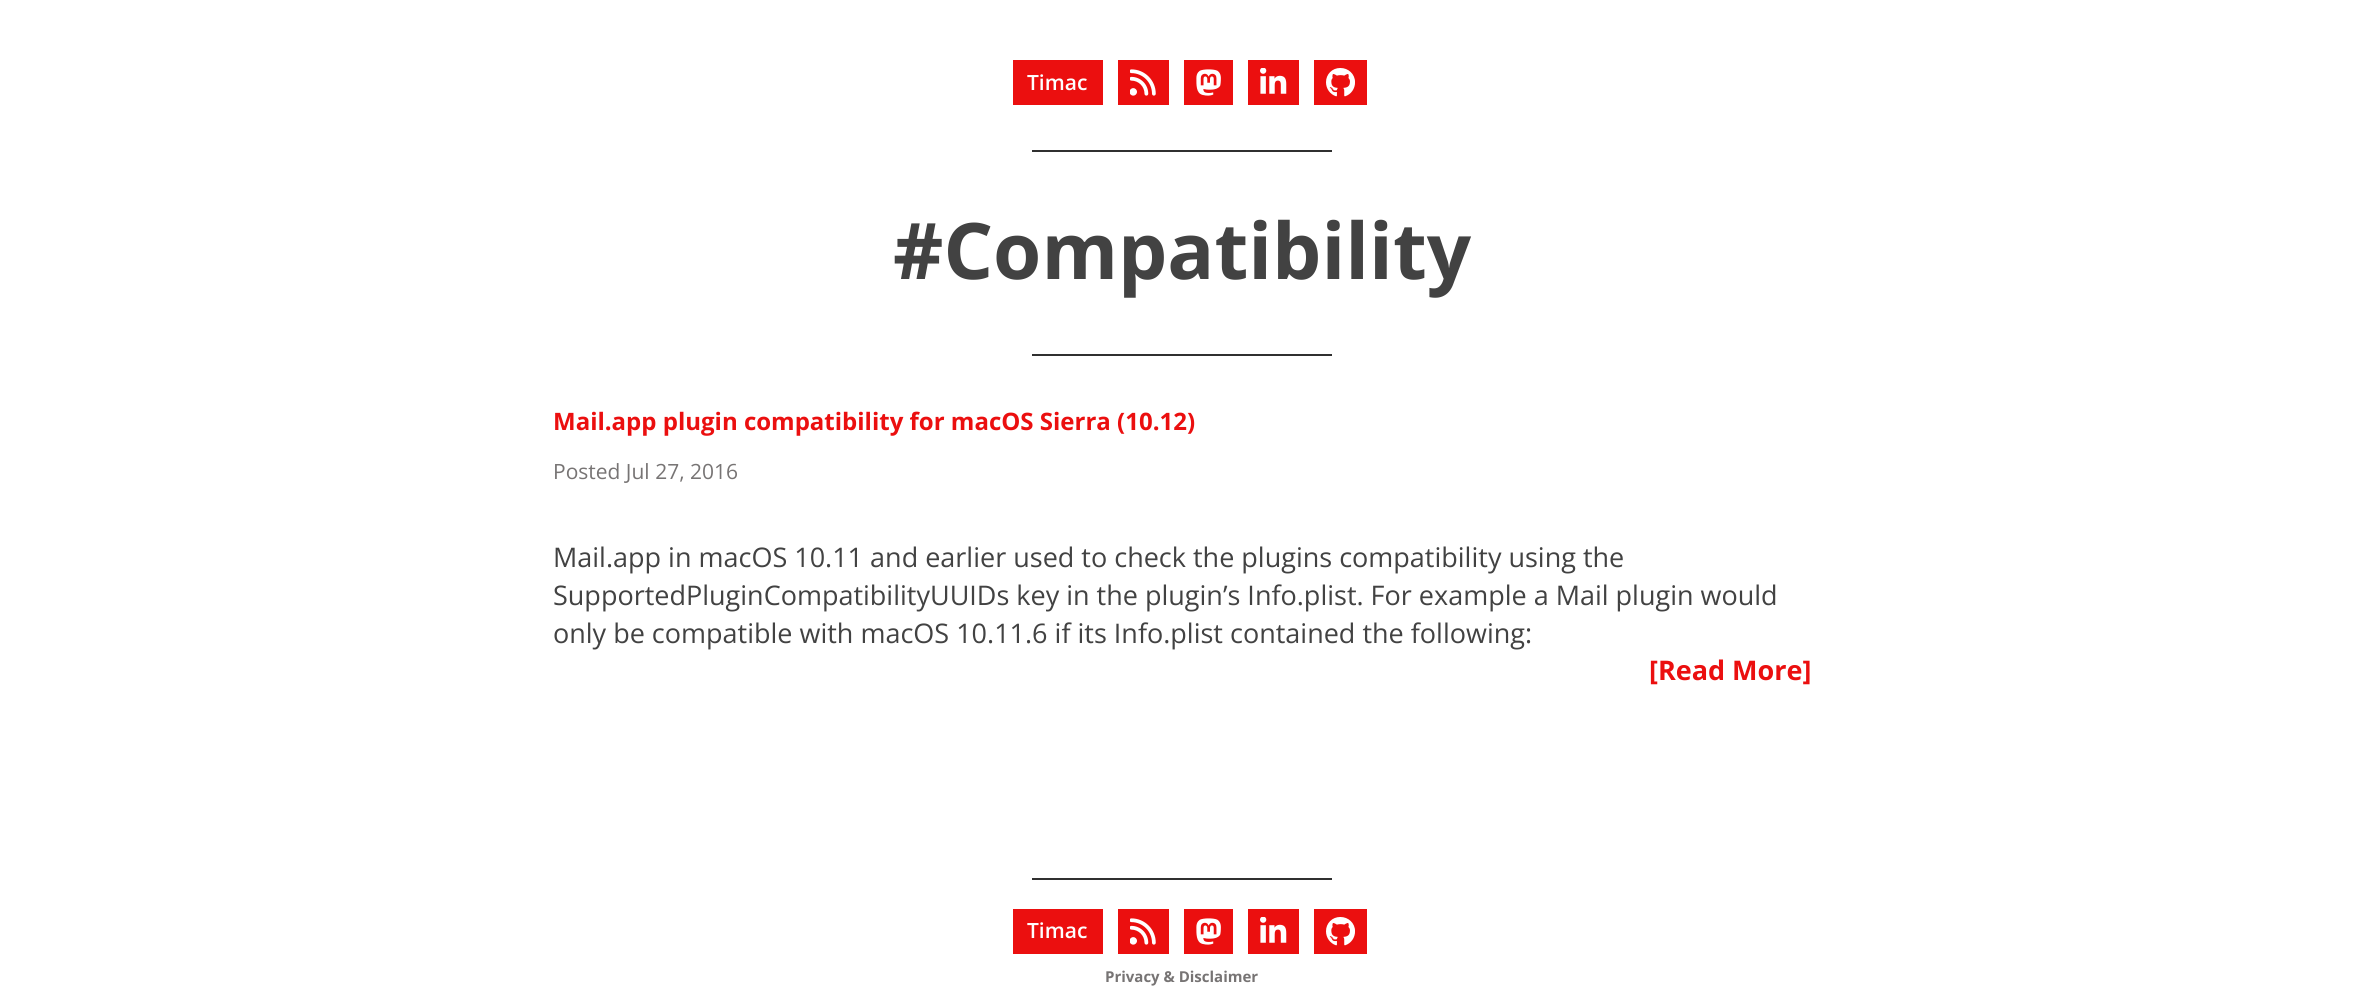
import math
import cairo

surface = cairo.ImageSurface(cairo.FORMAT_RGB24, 2363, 1006)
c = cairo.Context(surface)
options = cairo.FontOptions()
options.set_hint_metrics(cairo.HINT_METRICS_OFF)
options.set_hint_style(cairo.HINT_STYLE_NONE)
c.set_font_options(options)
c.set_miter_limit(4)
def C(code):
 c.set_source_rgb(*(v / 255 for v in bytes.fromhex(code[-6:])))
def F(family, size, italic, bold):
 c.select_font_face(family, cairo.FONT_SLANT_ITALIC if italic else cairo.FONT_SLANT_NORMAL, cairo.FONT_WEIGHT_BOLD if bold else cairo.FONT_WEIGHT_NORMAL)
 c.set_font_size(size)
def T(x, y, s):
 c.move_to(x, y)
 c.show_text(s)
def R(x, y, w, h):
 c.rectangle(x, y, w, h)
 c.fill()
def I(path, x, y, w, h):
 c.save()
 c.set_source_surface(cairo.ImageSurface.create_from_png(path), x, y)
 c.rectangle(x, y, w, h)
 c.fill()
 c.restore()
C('ffffff')
c.paint()
C('eb0f0f')
R(1013,60,90,45)
F('Open Sans SemiBold',21,0,0)
C('fefefe')
T(1027,90,'Timac')
C('eb0f0f')
R(1118,60,51,45)
I('1.png',1130,69,26,27)
R(1184,60,49,45)
I('2.png',1196,69,25,27)
R(1248,60,51,45)
I('3.png',1260,68,27,26)
R(1314,60,53,45)
I('4.png',1326,68,29,29)
C('303030')
R(1032,150,300,2)
F('Open Sans',78,0,1)
C('424242')
T(893,279,'#Compatibility')
C('303030')
R(1032,354,300,2)
F('Open Sans',24,0,1)
C('eb0f0f')
T(553,430,'Mail.app plugin compatibility for macOS Sierra (10.12)')
F('Open Sans',21,0,0)
C('777474')
T(553,479,'Posted Jul 27, 2016')
F('Open Sans',27,0,0)
C('424242')
T(553,567,'Mail.app in macOS 10.11 and earlier used to check the plugins compatibility using the')
T(553,605,'SupportedPluginCompatibilityUUIDs key in the plugin’s Info.plist. For example a Mail plugin would')
T(553,643,'only be compatible with macOS 10.11.6 if its Info.plist contained the following:')
F('Open Sans',27,0,1)
C('eb0f0f')
T(1649,680,'[Read More]')
C('303030')
R(1032,878,300,2)
C('eb0f0f')
R(1013,909,90,45)
F('Open Sans SemiBold',21,0,0)
C('fefefe')
T(1027,938,'Timac')
C('eb0f0f')
R(1118,909,51,45)
I('1.png',1130,918,26,27)
R(1184,909,49,45)
I('2.png',1196,918,25,27)
R(1248,909,51,45)
I('3.png',1260,917,27,26)
R(1314,909,53,45)
I('4.png',1326,917,29,29)
F('Open Sans',15,0,1)
C('777474')
T(1105,982,'Privacy & Disclaimer')
surface.write_to_png('o.png')
